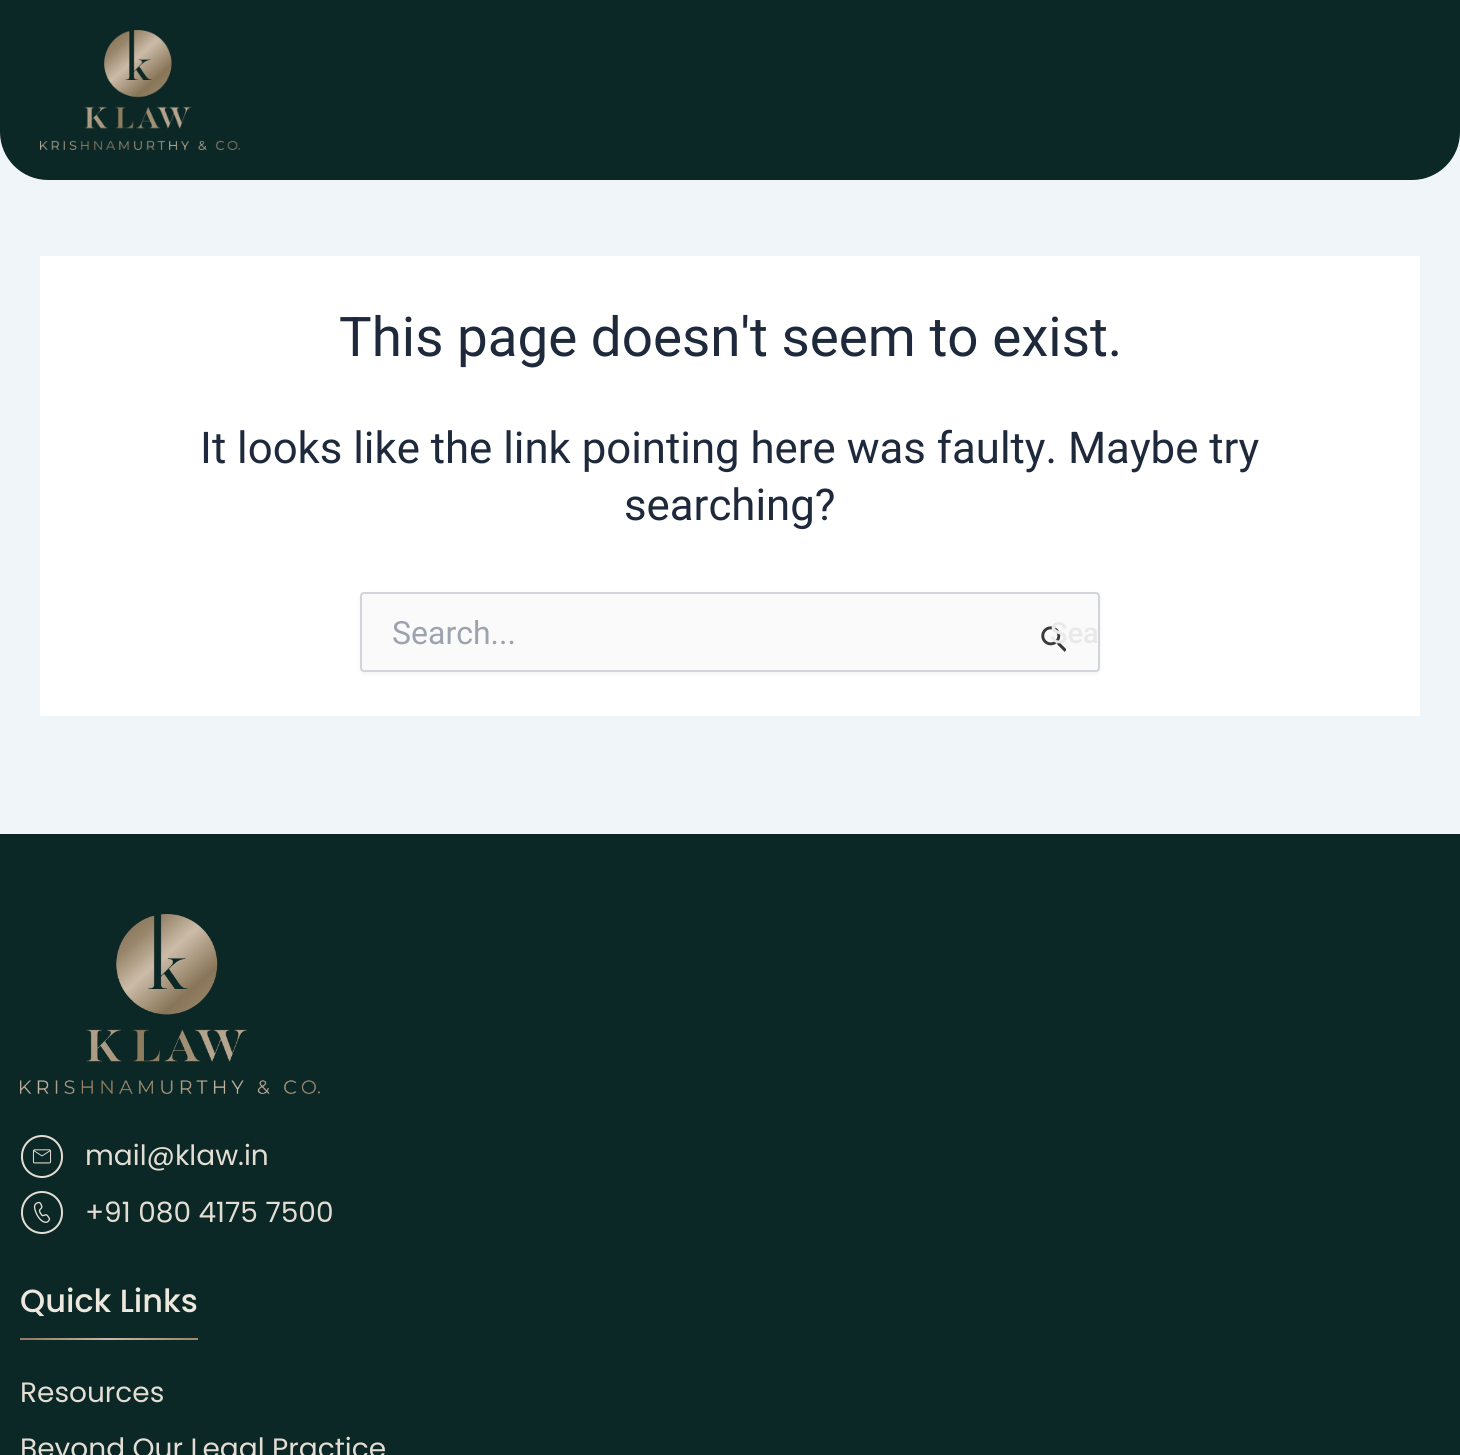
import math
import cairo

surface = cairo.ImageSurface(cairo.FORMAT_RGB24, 1460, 1455)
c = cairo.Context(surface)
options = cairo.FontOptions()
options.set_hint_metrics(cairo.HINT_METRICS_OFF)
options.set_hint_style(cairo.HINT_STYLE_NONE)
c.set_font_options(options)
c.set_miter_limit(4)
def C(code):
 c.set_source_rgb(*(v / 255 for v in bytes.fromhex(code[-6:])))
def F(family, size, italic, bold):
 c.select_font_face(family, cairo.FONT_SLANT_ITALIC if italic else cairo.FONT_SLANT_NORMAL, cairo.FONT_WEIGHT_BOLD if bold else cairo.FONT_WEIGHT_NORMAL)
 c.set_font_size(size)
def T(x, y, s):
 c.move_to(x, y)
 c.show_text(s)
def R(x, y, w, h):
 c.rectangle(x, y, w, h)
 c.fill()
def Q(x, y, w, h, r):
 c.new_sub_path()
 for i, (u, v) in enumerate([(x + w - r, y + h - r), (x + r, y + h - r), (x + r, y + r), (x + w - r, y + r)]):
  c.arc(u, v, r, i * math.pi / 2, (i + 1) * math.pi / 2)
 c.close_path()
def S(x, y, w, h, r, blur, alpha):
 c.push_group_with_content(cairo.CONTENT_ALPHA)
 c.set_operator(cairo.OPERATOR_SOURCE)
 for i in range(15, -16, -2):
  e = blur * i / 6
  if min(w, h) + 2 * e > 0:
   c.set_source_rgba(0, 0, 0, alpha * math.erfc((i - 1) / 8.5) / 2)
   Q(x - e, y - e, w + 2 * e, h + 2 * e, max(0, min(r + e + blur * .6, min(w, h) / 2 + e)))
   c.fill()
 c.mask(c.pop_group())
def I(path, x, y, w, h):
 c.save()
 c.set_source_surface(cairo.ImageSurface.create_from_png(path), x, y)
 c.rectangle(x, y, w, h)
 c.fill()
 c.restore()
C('f0f5fa')
c.paint()
C('0b2826')
c.new_path()
c.move_to(0,0)
c.line_to(1460,0)
c.line_to(1460,132)
c.curve_to(1460,158.5,1438.5,180,1412,180)
c.line_to(48,180)
c.curve_to(21.5,180,0,158.5,0,132)
c.close_path()
c.fill()
I('1.png',40,30,200,120)
C('ffffff')
R(40,256,1380,460)
F('Roboto',54.75,0,0)
C('1e293b')
T(339,356,'This page doesn\'t seem to exist.')
F('Roboto',43.75,0,0)
T(200,463,'It looks like the link pointing here was faulty. Maybe try')
T(624,520,'searching?')
C('000000')
S(360,594,740,80,4,2,.05)
C('fafafa')
Q(361,593,738,78,3)
c.fill_preserve()
C('d1d5db')
c.stroke()
F('Roboto',32,0,0)
C('9ca3af')
T(392,644,'Search...')
I('2.png',1041,626,25,26)
F('Roboto Medium',29,0,0)
C('e9e9e9')
T(1050,643,'Sea')
C('0b2826')
R(0,834,1460,621)
I('3.png',20,914,300,180)
I('4.png',21,1135,42,43)
F('Poppins',28,0,0)
C('e3ddd3')
T(85,1165,'mail@klaw.in')
I('5.png',21,1191,42,43)
T(85,1222,'+91 080 4175 7500')
F('Poppins Medium',32,0,0)
C('ede8dd')
T(20,1312,'Quick Links')
I('6.png',20,1338,178,2)
F('Poppins',28,0,0)
C('e3ddd3')
T(20,1402,'Resources')
T(20,1458,'Beyond Our Legal Practice')
surface.write_to_png('o.png')
